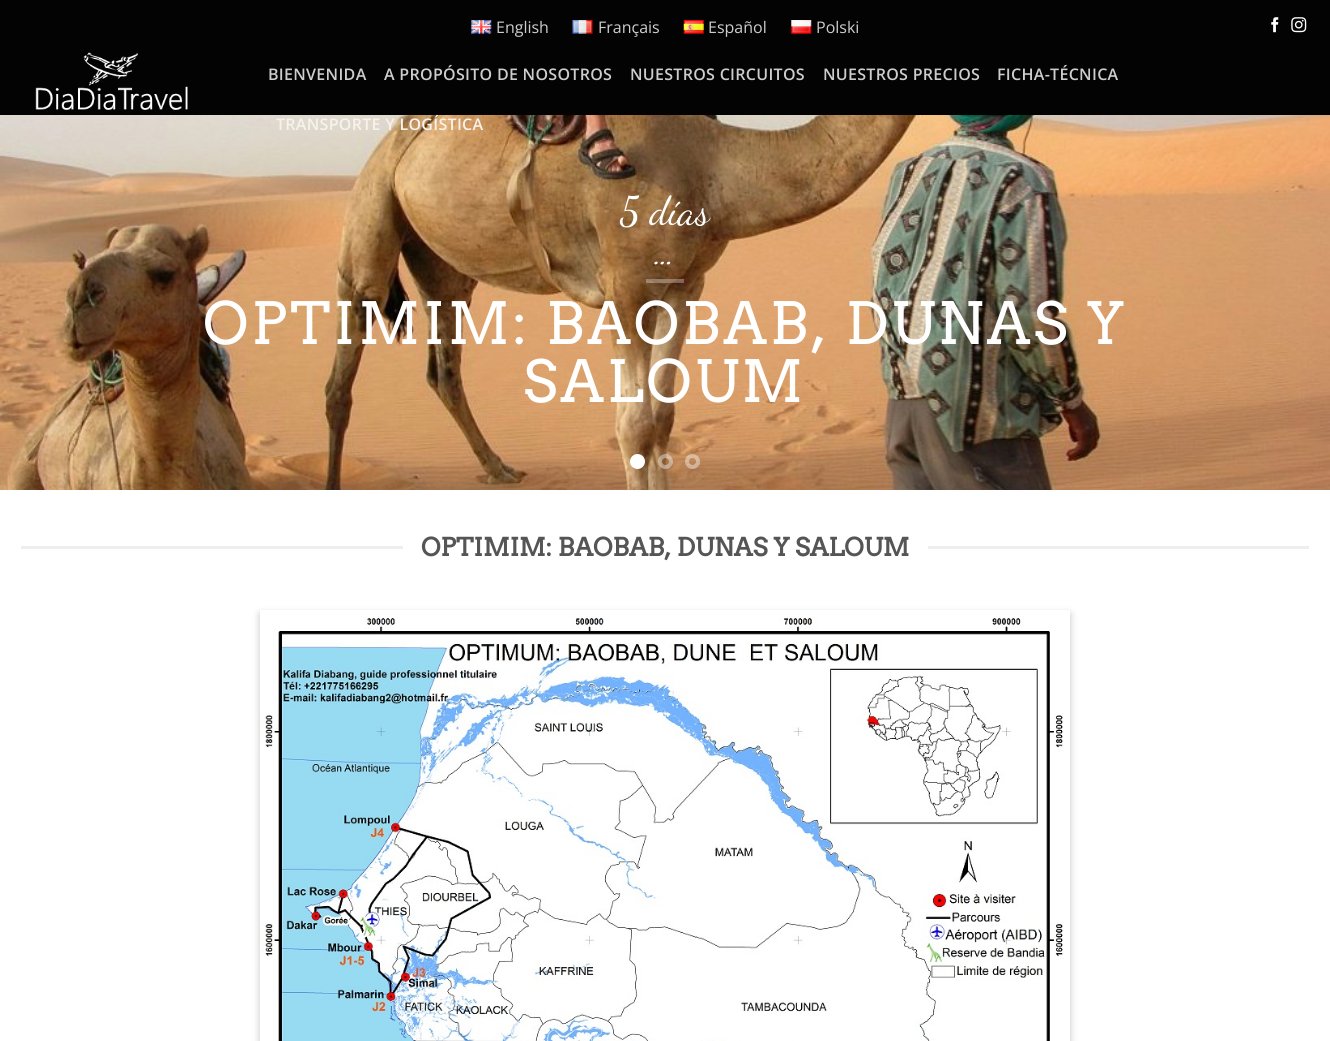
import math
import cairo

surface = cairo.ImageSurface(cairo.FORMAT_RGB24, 1330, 1041)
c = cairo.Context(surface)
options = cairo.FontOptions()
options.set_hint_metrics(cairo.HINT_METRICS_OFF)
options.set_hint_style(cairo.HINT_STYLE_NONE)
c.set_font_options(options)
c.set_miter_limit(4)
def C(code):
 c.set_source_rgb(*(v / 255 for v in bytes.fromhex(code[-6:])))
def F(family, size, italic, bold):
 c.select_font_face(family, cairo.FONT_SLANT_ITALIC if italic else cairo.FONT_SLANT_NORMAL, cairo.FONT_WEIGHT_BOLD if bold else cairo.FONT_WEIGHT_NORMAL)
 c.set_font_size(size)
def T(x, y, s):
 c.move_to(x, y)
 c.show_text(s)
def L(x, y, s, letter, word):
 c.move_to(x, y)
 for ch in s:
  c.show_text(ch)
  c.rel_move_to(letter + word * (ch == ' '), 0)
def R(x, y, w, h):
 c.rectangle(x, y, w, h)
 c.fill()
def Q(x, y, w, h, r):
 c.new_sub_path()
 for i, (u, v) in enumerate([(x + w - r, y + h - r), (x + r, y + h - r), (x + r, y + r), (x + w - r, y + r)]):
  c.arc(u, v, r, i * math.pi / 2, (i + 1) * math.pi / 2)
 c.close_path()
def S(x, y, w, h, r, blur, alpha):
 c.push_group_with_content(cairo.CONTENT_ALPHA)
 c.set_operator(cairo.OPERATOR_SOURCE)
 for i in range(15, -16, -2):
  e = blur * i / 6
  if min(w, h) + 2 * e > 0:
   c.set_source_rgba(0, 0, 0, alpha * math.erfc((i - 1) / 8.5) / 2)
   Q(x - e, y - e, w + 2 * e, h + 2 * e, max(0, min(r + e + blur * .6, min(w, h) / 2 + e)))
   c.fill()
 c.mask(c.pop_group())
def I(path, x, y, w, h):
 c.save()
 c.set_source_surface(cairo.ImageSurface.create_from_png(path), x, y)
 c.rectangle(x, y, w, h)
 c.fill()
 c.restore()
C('ffffff')
c.paint()
C('030303')
R(0,0,1330,115)
I('1.png',471,20,21,14)
F('Open Sans',16,0,0)
C('cdcdcd')
T(496,33,'English')
I('2.png',572,20,21,14)
T(598,33,'Français')
I('3.png',683,20,21,14)
T(708,33,'Español')
I('4.png',791,20,21,14)
T(816,33,'Polski')
I('5.png',1271,17,8,16)
I('6.png',1291,17,16,16)
I('7.png',35,52,153,58)
F('Open Sans SemiBold',16,0,0)
L(268,80,'BIENVENIDA',.3,0)
L(384,80,'A PROPÓSITO DE NOSOTROS',.3,0)
L(630,80,'NUESTROS CIRCUITOS',.3,0)
L(823,80,'NUESTROS PRECIOS',.3,0)
L(997,80,'FICHA-TÉCNICA',.3,0)
I('8.png',0,115,1330,375)
C('f7f2ec')
L(276,130,'TRANSPORTE Y LOGÍSTICA',.3,0)
F('Dancing Script',40,0,0)
C('ffffff')
T(620,224,'5 días')
T(654,264,'…')
c.set_source_rgba(1,1,1,0.3)
R(646,279,38,4)
F('Arvo',58,0,0)
C('ffffff')
L(203,344,'OPTIMIM: BAOBAB, DUNAS Y',2.9,0)
L(523,402,'SALOUM',2.9,0)
c.new_path()
c.arc(637.5,461.5,5.5,0,2 * math.pi)
c.fill_preserve()
c.set_line_width(4)
c.stroke()
c.arc(665.5,461.5,5.5,0,2 * math.pi)
c.set_source_rgba(1,1,1,0.4)
c.stroke()
c.arc(692.5,461.5,5.5,0,2 * math.pi)
c.stroke()
C('eeeeee')
R(21,546,382,3)
F('Arvo',25,0,1)
C('555555')
T(421,556,'OPTIMIM: BAOBAB, DUNAS Y SALOUM')
C('eeeeee')
R(928,546,381,3)
c.save()
c.set_fill_rule(cairo.FILL_RULE_EVEN_ODD)
c.new_path()
c.move_to(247,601)
c.line_to(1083,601)
c.line_to(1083,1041)
c.line_to(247,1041)
c.close_path()
c.move_to(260,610)
c.line_to(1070,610)
c.line_to(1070,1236)
c.line_to(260,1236)
c.close_path()
c.clip()
C('000000')
S(260,614,810,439,0,4,.23)
c.restore()
I('9.png',260,616,804,425)
surface.write_to_png('o.png')
